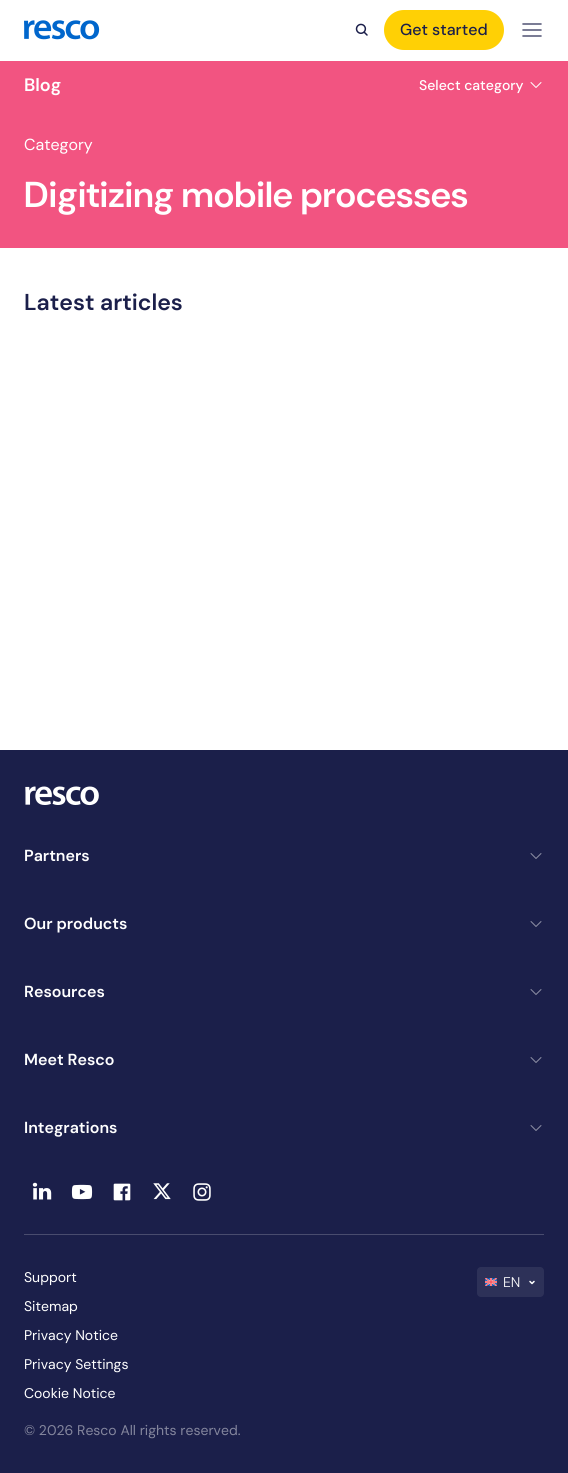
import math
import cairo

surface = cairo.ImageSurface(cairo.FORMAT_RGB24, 568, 1473)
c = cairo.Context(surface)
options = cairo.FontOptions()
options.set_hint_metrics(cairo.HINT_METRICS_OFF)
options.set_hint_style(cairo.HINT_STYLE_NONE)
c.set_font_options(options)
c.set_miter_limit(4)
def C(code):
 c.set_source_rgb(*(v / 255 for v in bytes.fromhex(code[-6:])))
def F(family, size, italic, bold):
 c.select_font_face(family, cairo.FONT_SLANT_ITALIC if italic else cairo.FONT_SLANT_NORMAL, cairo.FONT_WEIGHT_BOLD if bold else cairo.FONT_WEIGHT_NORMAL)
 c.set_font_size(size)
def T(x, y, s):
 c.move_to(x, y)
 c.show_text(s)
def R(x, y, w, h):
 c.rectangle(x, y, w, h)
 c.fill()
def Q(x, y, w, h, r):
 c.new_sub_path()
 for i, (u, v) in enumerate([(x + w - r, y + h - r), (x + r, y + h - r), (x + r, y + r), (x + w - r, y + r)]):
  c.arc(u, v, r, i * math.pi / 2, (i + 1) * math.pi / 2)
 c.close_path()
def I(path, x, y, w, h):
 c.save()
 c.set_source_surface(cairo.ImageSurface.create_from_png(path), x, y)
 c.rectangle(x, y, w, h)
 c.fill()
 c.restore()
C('ffffff')
c.paint()
I('1.png',24,20,76,20)
I('2.png',355,23,13,13)
C('ffd005')
Q(384,10,120,40,20)
c.fill()
F('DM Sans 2 Medium',16,0,0)
C('1b1f4a')
T(400,35,'Get started')
c.new_path()
c.move_to(541,30)
c.line_to(523,30)
c.move_to(541,24)
c.line_to(523,24)
c.move_to(541,36)
c.line_to(523,36)
C('494c6e')
c.set_line_width(1.5)
c.set_line_cap(cairo.LINE_CAP_ROUND)
c.set_line_join(cairo.LINE_JOIN_ROUND)
c.stroke()
C('f25481')
R(0,61,568,187)
F('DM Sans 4 SemiBold',18,0,0)
C('ffffff')
T(24,91,'Blog')
F('DM Sans Medium',14,0,0)
T(419,90,'Select category')
I('3.png',530,82,12,6)
F('DM Sans 2',16,0,0)
T(24,150,'Category')
F('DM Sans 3 SemiBold',36,0,0)
T(24,207,'Digitizing mobile processes')
F('DM Sans SemiBold',23,0,0)
C('1b1f4a')
T(24,310,'Latest articles')
R(0,750,568,723)
I('4.png',25,786,74,20)
F('DM Sans 2 SemiBold',16,0,0)
C('ffffff')
T(24,861,'Partners')
I('5.png',530,853,12,6)
T(24,929,'Our products')
I('5.png',530,921,12,6)
T(24,997,'Resources')
I('5.png',530,989,12,6)
T(24,1065,'Meet Resco')
I('5.png',530,1057,12,6)
T(24,1133,'Integrations')
I('5.png',530,1125,12,6)
I('6.png',32,1182,20,18)
I('7.png',71,1184,22,16)
I('8.png',113,1183,18,18)
I('9.png',153,1183,18,17)
I('10.png',193,1183,18,18)
C('494c6e')
R(24,1234,520,1)
F('DM Sans',14,0,0)
C('ffffff')
T(24,1282,'Support')
T(24,1311,'Sitemap')
T(24,1340,'Privacy Notice')
T(24,1369,'Privacy Settings')
T(24,1398,'Cookie Notice')
C('2d3158')
Q(477,1267,67,30,4)
c.fill()
I('11.png',485,1278,12,8)
F('DM Sans Light',14,0,0)
C('ffffff')
T(503,1287,'EN')
c.new_path()
c.move_to(530,1281.5)
c.line_to(532,1283.5)
c.line_to(534,1281.5)
c.stroke()
F('DM Sans',14,0,0)
C('84869d')
T(24,1435,'© 2026 Resco All rights reserved.')
surface.write_to_png('o.png')
